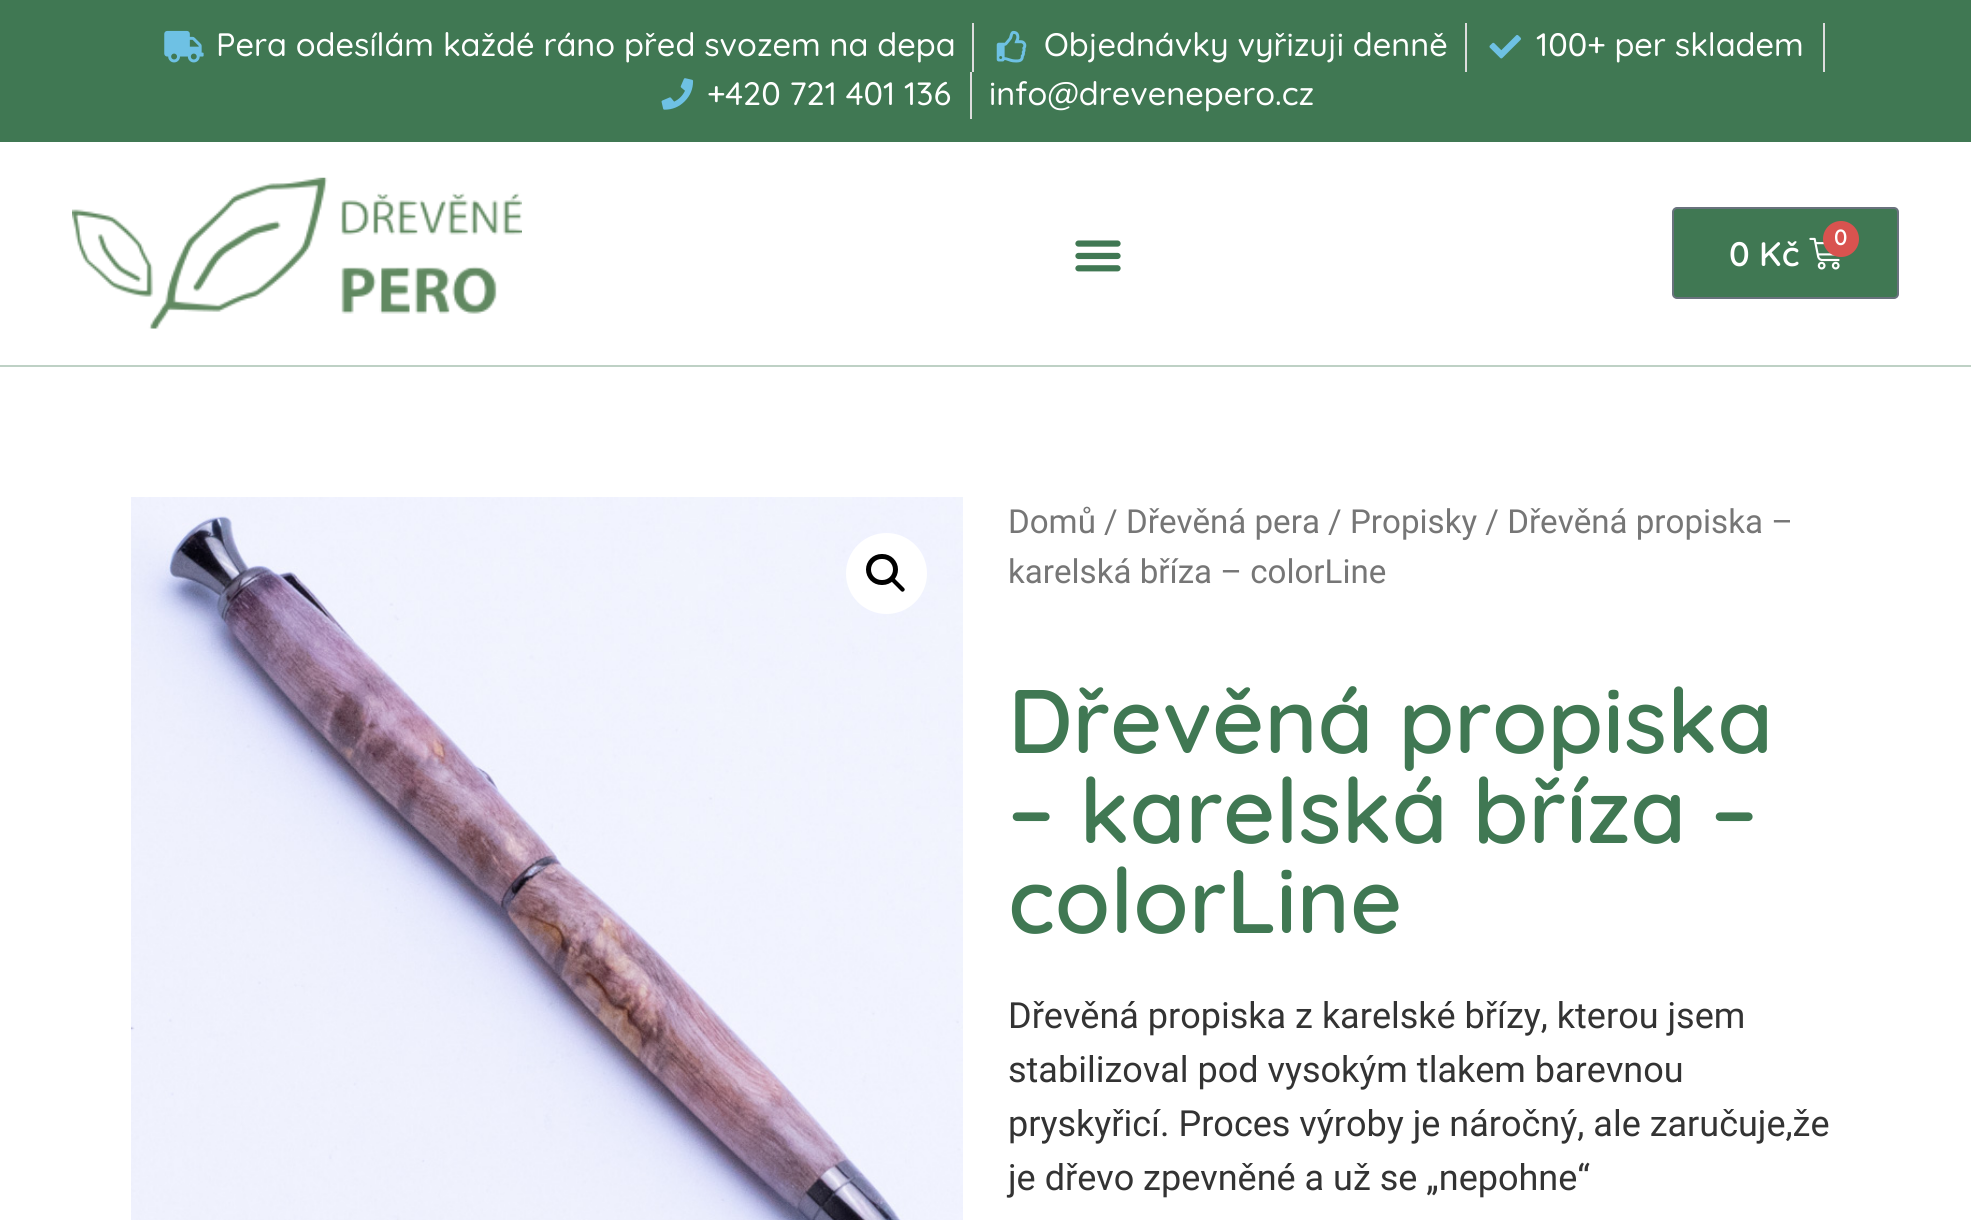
import math
import cairo

surface = cairo.ImageSurface(cairo.FORMAT_RGB24, 1971, 1220)
c = cairo.Context(surface)
options = cairo.FontOptions()
options.set_hint_metrics(cairo.HINT_METRICS_OFF)
options.set_hint_style(cairo.HINT_STYLE_NONE)
c.set_font_options(options)
c.set_miter_limit(4)
def C(code):
 c.set_source_rgb(*(v / 255 for v in bytes.fromhex(code[-6:])))
def F(family, size, italic, bold):
 c.select_font_face(family, cairo.FONT_SLANT_ITALIC if italic else cairo.FONT_SLANT_NORMAL, cairo.FONT_WEIGHT_BOLD if bold else cairo.FONT_WEIGHT_NORMAL)
 c.set_font_size(size)
def T(x, y, s):
 c.move_to(x, y)
 c.show_text(s)
def R(x, y, w, h):
 c.rectangle(x, y, w, h)
 c.fill()
def Q(x, y, w, h, r):
 c.new_sub_path()
 for i, (u, v) in enumerate([(x + w - r, y + h - r), (x + r, y + h - r), (x + r, y + r), (x + w - r, y + r)]):
  c.arc(u, v, r, i * math.pi / 2, (i + 1) * math.pi / 2)
 c.close_path()
def I(path, x, y, w, h):
 c.save()
 c.set_source_surface(cairo.ImageSurface.create_from_png(path), x, y)
 c.rectangle(x, y, w, h)
 c.fill()
 c.restore()
C('ffffff')
c.paint()
C('407853')
R(0,0,1971,142)
I('1.png',164,30,40,33)
F('Quicksand Medium',32.4,0,0)
C('ffffff')
T(216,56,'Pera odesílám každé ráno před svozem na depa')
C('dddddd')
R(972,23,2,49)
I('2.png',996,30,31,33)
C('ffffff')
T(1044,56,'Objednávky vyřizuji denně')
C('dddddd')
R(1465,23,2,49)
I('3.png',1489,35,32,24)
C('ffffff')
T(1536,56,'100+ per skladem')
C('dddddd')
R(1823,23,2,49)
I('4.png',661,78,33,32)
C('ffffff')
T(707,105,'+420 721 401 136')
C('dddddd')
R(970,72,2,47)
C('ffffff')
T(989,105,'info@drevenepero.cz')
C('bed1c5')
R(0,365,1971,2)
I('5.png',72,177,450,152)
I('6.png',1075,240,46,32)
C('407853')
Q(1673,208,225,90,4)
c.fill_preserve()
C('69727d')
c.stroke()
I('7.png',1809,237,31,33)
C('d9534f')
c.arc(1841,239,18,0,2 * math.pi)
c.fill()
F('Quicksand SemiBold',22,0,0)
C('ffffff')
T(1834,245,'0')
F('Quicksand SemiBold',34,0,0)
T(1729,266,'0 Kč')
I('8.png',131,497,832,723)
c.arc(886.5,573.5,40.5,0,2 * math.pi)
c.fill()
Q(868.5,556.5,27,26,13)
C('000000')
c.set_line_width(5)
c.stroke()
c.new_path()
c.move_to(891.5,578.5)
c.curve_to(892.5,577.5,893.5,577.5,894.5,578.5)
c.line_to(904,588)
c.curve_to(905,589,905,590,904,591)
c.curve_to(903,592,902,592,901,591)
c.line_to(891.5,581.5)
c.curve_to(890.5,580.5,890.5,579,891.5,578.5)
c.close_path()
c.fill()
F('Roboto',33.1,0,0)
C('767676')
T(1008,533,'Domů / Dřevěná pera / Propisky / Dřevěná propiska –')
T(1008,583,'karelská bříza – colorLine')
F('Quicksand SemiBold',90,0,0)
C('407853')
T(1008,753,'Dřevěná propiska')
T(1008,843,'– karelská bříza –')
T(1008,933,'colorLine')
F('Roboto',36,0,0)
C('333333')
T(1008,1028,'Dřevěná propiska z karelské břízy, kterou jsem')
T(1008,1082,'stabilizoval pod vysokým tlakem barevnou')
T(1008,1136,'pryskyřicí. Proces výroby je náročný, ale zaručuje,že')
T(1008,1190,'je dřevo zpevněné a už se „nepohne“')
surface.write_to_png('o.png')
